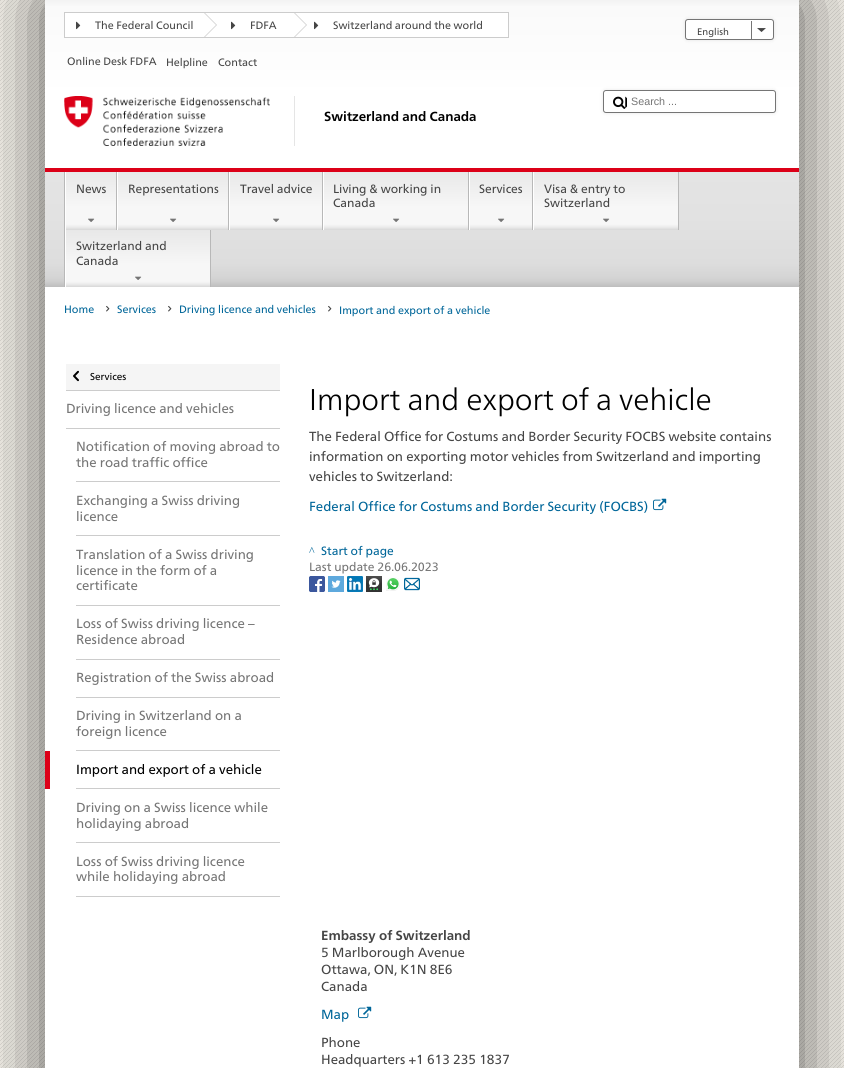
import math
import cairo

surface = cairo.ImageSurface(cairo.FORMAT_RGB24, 844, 1068)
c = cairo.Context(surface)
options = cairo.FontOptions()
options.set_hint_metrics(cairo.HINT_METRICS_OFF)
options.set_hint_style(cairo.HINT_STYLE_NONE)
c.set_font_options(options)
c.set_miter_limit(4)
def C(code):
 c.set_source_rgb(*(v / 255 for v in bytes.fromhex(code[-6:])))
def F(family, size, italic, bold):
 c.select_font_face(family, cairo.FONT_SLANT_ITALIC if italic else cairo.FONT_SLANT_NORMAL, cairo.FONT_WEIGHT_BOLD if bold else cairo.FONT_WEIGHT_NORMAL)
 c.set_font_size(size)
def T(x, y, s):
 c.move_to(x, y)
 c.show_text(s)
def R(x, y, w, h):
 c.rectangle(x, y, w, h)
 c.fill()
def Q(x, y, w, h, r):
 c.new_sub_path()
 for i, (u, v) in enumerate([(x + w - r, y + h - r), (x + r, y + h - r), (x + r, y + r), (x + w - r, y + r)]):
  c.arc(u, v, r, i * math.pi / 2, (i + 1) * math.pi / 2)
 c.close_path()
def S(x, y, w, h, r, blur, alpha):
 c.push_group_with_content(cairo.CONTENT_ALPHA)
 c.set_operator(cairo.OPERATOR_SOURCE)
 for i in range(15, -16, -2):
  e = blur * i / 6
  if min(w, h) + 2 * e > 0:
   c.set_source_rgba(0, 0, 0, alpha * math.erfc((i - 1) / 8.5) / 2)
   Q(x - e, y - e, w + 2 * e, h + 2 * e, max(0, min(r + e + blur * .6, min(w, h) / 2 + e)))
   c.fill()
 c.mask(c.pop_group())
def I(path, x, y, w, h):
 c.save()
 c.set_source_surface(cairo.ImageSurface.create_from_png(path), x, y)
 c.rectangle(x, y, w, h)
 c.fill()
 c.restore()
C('ffffff')
c.paint()
I('1.png',0,0,844,1068)
C('000000')
S(45,0,754,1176,0,36,.6)
C('ffffff')
R(45,96,754,972)
gradient = cairo.LinearGradient(422,0,422,96)
gradient.add_color_stop_rgba(0,0.949,0.949,0.949,1)
gradient.add_color_stop_rgba(.07,0.98,0.98,0.98,1)
gradient.add_color_stop_rgba(1,1,1,1,1)
c.set_source(gradient)
R(45,0,754,96)
C('ffffff')
c.rectangle(64.5,12.5,444,25)
c.fill_preserve()
C('cccccc')
c.set_line_width(1)
c.stroke()
c.new_path()
c.move_to(204,38)
c.line_to(204,12)
c.line_to(217,25)
c.close_path()
c.fill()
I('2.png',76,21,5,9)
F('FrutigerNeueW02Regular',10.75,0,0)
C('454545')
T(95,29,'The Federal Council')
C('ffffff')
c.new_path()
c.move_to(204,37)
c.line_to(204,13)
c.line_to(216,25)
c.close_path()
c.fill()
C('cccccc')
c.new_path()
c.move_to(294,38)
c.line_to(294,12)
c.line_to(307,25)
c.close_path()
c.fill()
I('2.png',231,21,5,9)
C('454545')
T(250,29,'FDFA')
C('ffffff')
c.new_path()
c.move_to(294,37)
c.line_to(294,13)
c.line_to(306,25)
c.close_path()
c.fill()
I('2.png',314,21,5,9)
C('454545')
T(333,29,'Switzerland around the world')
C('000000')
S(685,19,89,21,3,2,.1)
C('ffffff')
Q(685.5,19.5,88,20,2.5)
c.fill_preserve()
C('757575')
c.stroke()
F('FrutigerNeueW02Regular',9.5,0,0)
C('454545')
T(697,35,'English')
I('3.png',757,28,9,4)
C('757575')
R(751,21,1,18)
F('FrutigerNeueW02Regular',10.75,0,0)
C('454545')
T(67,65,'Online Desk FDFA')
T(166,66,'Helpline')
T(218,66,'Contact')
C('000000')
S(603,90,173,23,3,2,.1)
C('ffffff')
Q(603.5,90.5,172,22,2.5)
c.fill_preserve()
C('757575')
c.stroke()
I('4.png',613,96,14,13)
F('Liberation Sans',10.75,0,0)
T(631,105,'Search ...')
I('5.png',64,96,206,50)
C('e5e5e5')
R(294,96,1,50)
F('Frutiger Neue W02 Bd',13.2,0,1)
C('000000')
T(324,121,'Switzerland and Canada')
gradient = cairo.LinearGradient(422,172,422,287)
gradient.add_color_stop_rgba(0,0.894,0.894,0.894,1)
gradient.add_color_stop_rgba(.39,0.886,0.886,0.886,1)
gradient.add_color_stop_rgba(.79,0.867,0.867,0.867,1)
gradient.add_color_stop_rgba(.91,0.835,0.835,0.835,1)
gradient.add_color_stop_rgba(.95,0.812,0.812,0.812,1)
gradient.add_color_stop_rgba(1,0.745,0.745,0.745,1)
c.set_source(gradient)
R(45,172,754,115)
C('dc0018')
R(45,168,754,4)
C('b8b8b8')
R(64,172,1,115)
gradient = cairo.LinearGradient(91,172,91,230)
gradient.add_color_stop_rgba(0,0.91,0.91,0.91,1)
gradient.add_color_stop_rgba(.61,0.969,0.969,0.969,1)
gradient.add_color_stop_rgba(.89,0.969,0.969,0.969,1)
gradient.add_color_stop_rgba(.91,0.961,0.961,0.961,1)
gradient.add_color_stop_rgba(.95,0.925,0.925,0.925,1)
gradient.add_color_stop_rgba(1,0.843,0.843,0.843,1)
c.set_source(gradient)
R(66,172,50,58)
C('b8b8b8')
R(116,172,1,58)
C('ffffff')
R(65,172,1,115)
F('FrutigerNeueW02Regular',12,0,0)
C('454545')
T(76,193,'News')
I('6.png',88,218,7,4)
gradient = cairo.LinearGradient(173,172,173,230)
gradient.add_color_stop_rgba(0,0.91,0.91,0.91,1)
gradient.add_color_stop_rgba(.61,0.969,0.969,0.969,1)
gradient.add_color_stop_rgba(.89,0.969,0.969,0.969,1)
gradient.add_color_stop_rgba(.91,0.961,0.961,0.961,1)
gradient.add_color_stop_rgba(.95,0.925,0.925,0.925,1)
gradient.add_color_stop_rgba(1,0.843,0.843,0.843,1)
c.set_source(gradient)
R(118,172,110,58)
C('b8b8b8')
R(228,172,1,58)
C('ffffff')
R(117,172,1,58)
C('454545')
T(128,193,'Representations')
I('6.png',170,218,7,4)
gradient = cairo.LinearGradient(276,172,276,230)
gradient.add_color_stop_rgba(0,0.91,0.91,0.91,1)
gradient.add_color_stop_rgba(.61,0.969,0.969,0.969,1)
gradient.add_color_stop_rgba(.89,0.969,0.969,0.969,1)
gradient.add_color_stop_rgba(.91,0.961,0.961,0.961,1)
gradient.add_color_stop_rgba(.95,0.925,0.925,0.925,1)
gradient.add_color_stop_rgba(1,0.843,0.843,0.843,1)
c.set_source(gradient)
R(230,172,92,58)
C('b8b8b8')
R(322,172,1,58)
C('ffffff')
R(229,172,1,58)
C('454545')
T(240,193,'Travel advice')
I('6.png',273,218,7,4)
gradient = cairo.LinearGradient(396,172,396,230)
gradient.add_color_stop_rgba(0,0.91,0.91,0.91,1)
gradient.add_color_stop_rgba(.61,0.969,0.969,0.969,1)
gradient.add_color_stop_rgba(.89,0.969,0.969,0.969,1)
gradient.add_color_stop_rgba(.91,0.961,0.961,0.961,1)
gradient.add_color_stop_rgba(.95,0.925,0.925,0.925,1)
gradient.add_color_stop_rgba(1,0.843,0.843,0.843,1)
c.set_source(gradient)
R(324,172,144,58)
C('b8b8b8')
R(468,172,1,58)
C('ffffff')
R(323,172,1,58)
C('454545')
T(333,193,'Living & working in')
T(333,207,'Canada')
I('6.png',393,218,7,4)
gradient = cairo.LinearGradient(501,172,501,230)
gradient.add_color_stop_rgba(0,0.91,0.91,0.91,1)
gradient.add_color_stop_rgba(.61,0.969,0.969,0.969,1)
gradient.add_color_stop_rgba(.89,0.969,0.969,0.969,1)
gradient.add_color_stop_rgba(.91,0.961,0.961,0.961,1)
gradient.add_color_stop_rgba(.95,0.925,0.925,0.925,1)
gradient.add_color_stop_rgba(1,0.843,0.843,0.843,1)
c.set_source(gradient)
R(470,172,62,58)
C('b8b8b8')
R(532,172,1,58)
C('ffffff')
R(469,172,1,58)
C('454545')
T(479,193,'Services')
I('6.png',498,218,7,4)
gradient = cairo.LinearGradient(606,172,606,230)
gradient.add_color_stop_rgba(0,0.91,0.91,0.91,1)
gradient.add_color_stop_rgba(.61,0.969,0.969,0.969,1)
gradient.add_color_stop_rgba(.89,0.969,0.969,0.969,1)
gradient.add_color_stop_rgba(.91,0.961,0.961,0.961,1)
gradient.add_color_stop_rgba(.95,0.925,0.925,0.925,1)
gradient.add_color_stop_rgba(1,0.843,0.843,0.843,1)
c.set_source(gradient)
R(534,172,144,58)
C('b8b8b8')
R(678,172,1,58)
C('ffffff')
R(533,172,1,58)
C('454545')
T(544,193,'Visa & entry to')
T(544,207,'Switzerland')
I('6.png',603,218,7,4)
gradient = cairo.LinearGradient(138,230,138,287)
gradient.add_color_stop_rgba(0,0.91,0.91,0.91,1)
gradient.add_color_stop_rgba(.61,0.969,0.969,0.969,1)
gradient.add_color_stop_rgba(.89,0.969,0.969,0.969,1)
gradient.add_color_stop_rgba(.91,0.961,0.961,0.961,1)
gradient.add_color_stop_rgba(.95,0.925,0.925,0.925,1)
gradient.add_color_stop_rgba(1,0.843,0.843,0.843,1)
c.set_source(gradient)
R(66,230,144,57)
C('b8b8b8')
R(210,230,1,57)
C('454545')
T(76,250,'Switzerland and')
T(76,265,'Canada')
I('6.png',135,276,7,4)
F('FrutigerNeueW02Regular',10.75,0,0)
C('006699')
T(64,313,'Home')
I('7.png',106,305,4,7)
T(117,313,'Services')
I('7.png',168,305,4,7)
T(179,313,'Driving licence and vehicles')
I('7.png',328,305,4,7)
T(339,314,'Import and export of a vehicle')
C('f5f5f5')
R(66,364,214,26)
C('cccccc')
R(66,390,214,1)
I('8.png',73,370,6,12)
F('FrutigerNeueW02Regular',10,0,0)
C('000000')
T(90,380,'Services')
C('cccccc')
R(66,428,214,1)
F('FrutigerNeueW02Regular',13.2,0,0)
C('757575')
T(66,413,'Driving licence and vehicles')
C('cccccc')
R(76,481,204,1)
C('757575')
T(76,451,'Notification of moving abroad to')
T(76,467,'the road traffic office')
C('cccccc')
R(76,535,204,1)
C('757575')
T(76,505,'Exchanging a Swiss driving')
T(76,521,'licence')
C('cccccc')
R(76,605,204,1)
C('757575')
T(76,559,'Translation of a Swiss driving')
T(76,575,'licence in the form of a')
T(76,590,'certificate')
C('cccccc')
R(76,659,204,1)
C('757575')
T(76,628,'Loss of Swiss driving licence –')
T(76,644,'Residence abroad')
C('cccccc')
R(76,697,204,1)
C('757575')
T(76,682,'Registration of the Swiss abroad')
C('cccccc')
R(76,750,204,1)
C('757575')
T(76,720,'Driving in Switzerland on a')
T(76,736,'foreign licence')
C('dc0018')
R(45,751,5,38)
C('cccccc')
R(76,788,204,1)
C('000000')
T(76,774,'Import and export of a vehicle')
C('cccccc')
R(76,842,204,1)
C('757575')
T(76,812,'Driving on a Swiss licence while')
T(76,828,'holidaying abroad')
C('cccccc')
R(76,896,204,1)
C('757575')
T(76,866,'Loss of Swiss driving licence')
T(76,881,'while holidaying abroad')
F('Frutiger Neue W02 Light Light',30,0,0)
C('000000')
T(309,410,'Import and export of a vehicle')
F('FrutigerNeueW02Regular',13.2,0,0)
C('454545')
T(309,441,'The Federal Office for Costums and Border Security FOCBS website contains')
T(309,461,'information on exporting motor vehicles from Switzerland and importing')
T(309,481,'vehicles to Switzerland:')
C('006699')
T(309,511,'Federal Office for Costums and Border Security (FOCBS)')
I('9.png',653,498,14,13)
F('Liberation Serif',12,0,0)
T(309,555,'^')
F('FrutigerNeueW02Regular',12,0,0)
T(321,555,'Start of page')
C('757575')
T(309,571,'Last update 26.06.2023')
I('10.png',309,576,16,16)
I('11.png',328,576,16,16)
I('12.png',347,576,16,16)
I('13.png',366,576,16,16)
I('14.png',386,577,14,14)
I('15.png',404,577,16,14)
F('Frutiger Neue W02 Bd',13.2,0,1)
C('454545')
T(321,940,'Embassy of Switzerland')
F('FrutigerNeueW02Regular',13.2,0,0)
T(321,957,'5 Marlborough Avenue')
T(321,974,'Ottawa, ON, K1N 8E6')
T(321,991,'Canada')
C('006699')
T(321,1019,'Map')
I('9.png',358,1006,14,13)
C('454545')
T(321,1047,'Phone')
T(321,1064,'Headquarters +1 613 235 1837')
surface.write_to_png('o.png')
